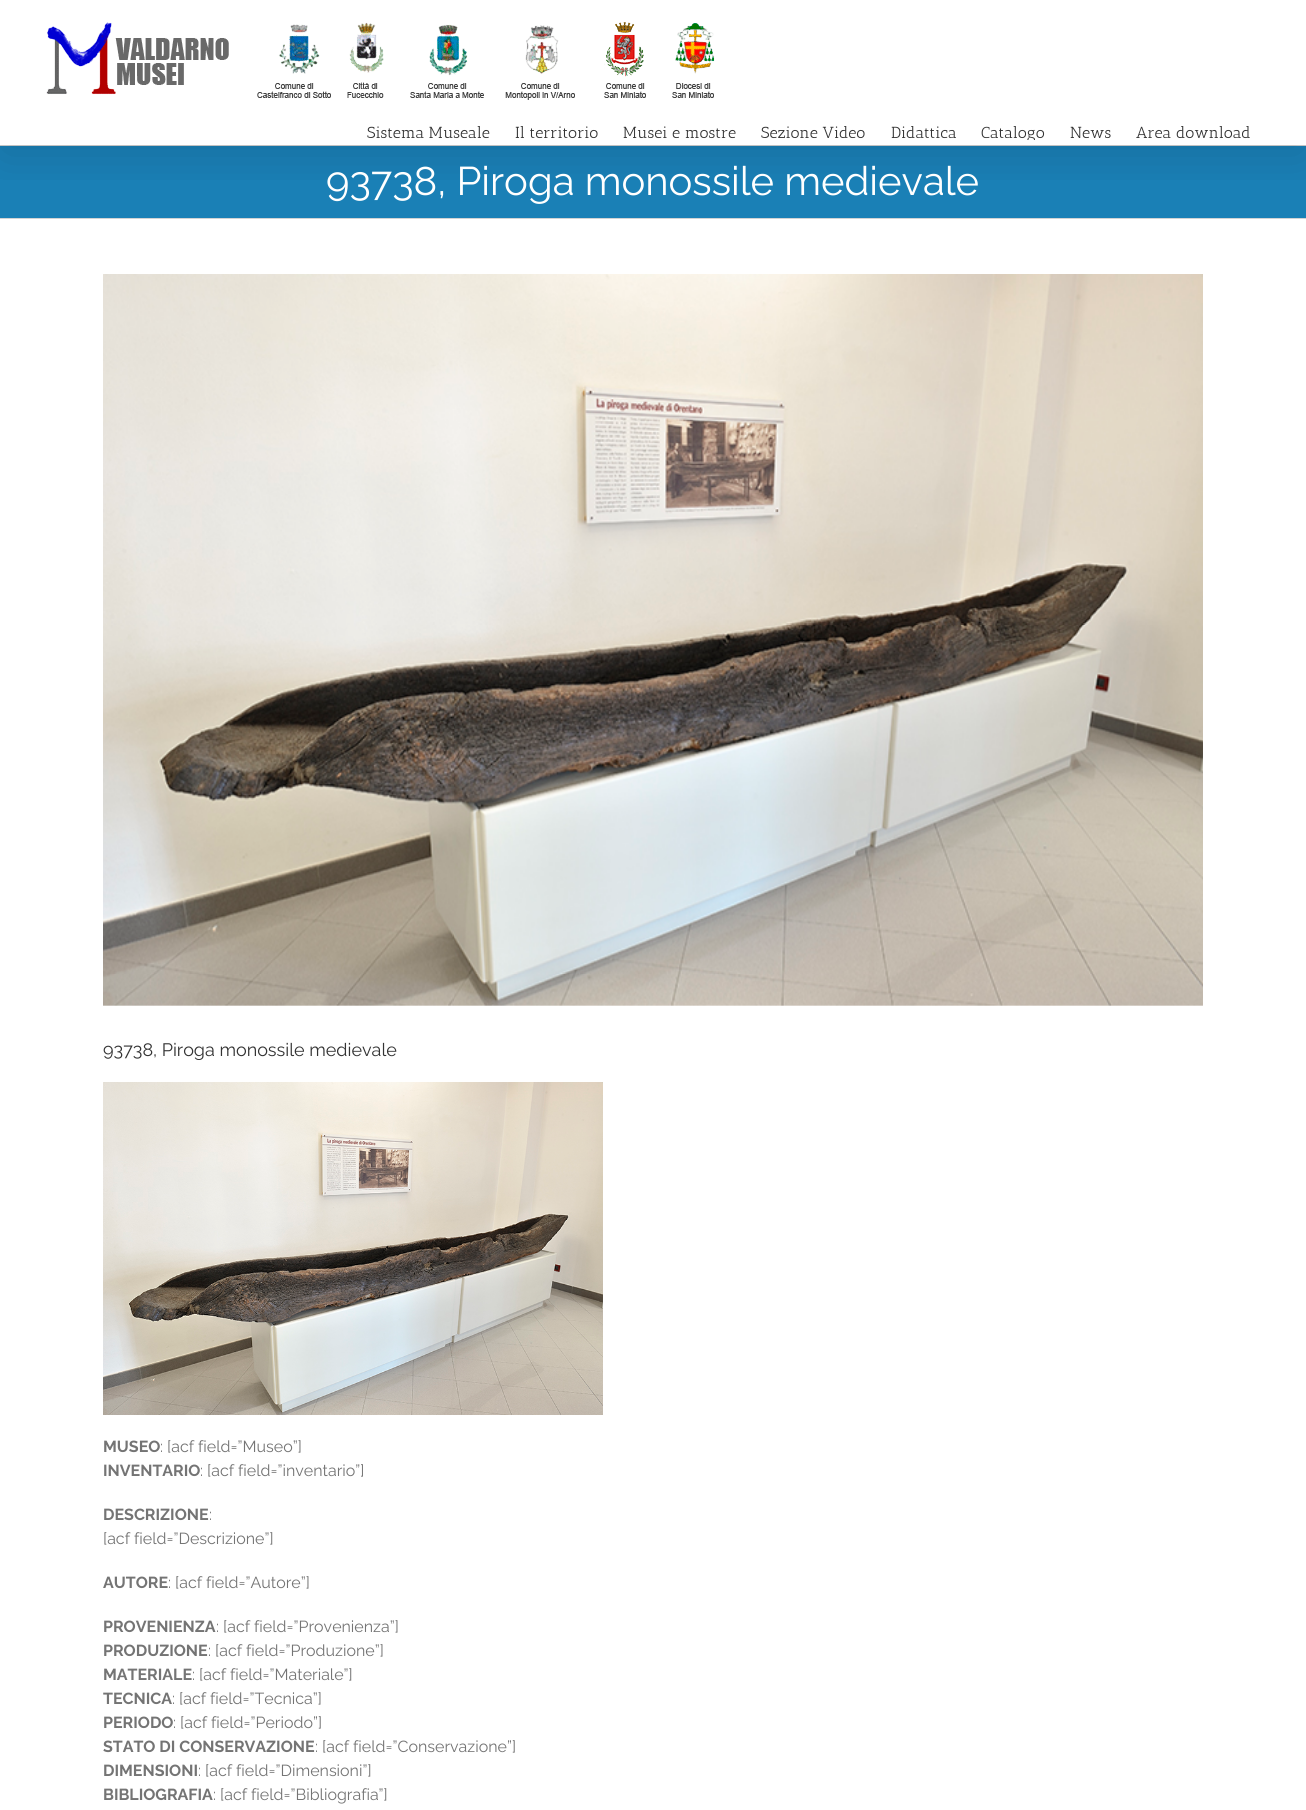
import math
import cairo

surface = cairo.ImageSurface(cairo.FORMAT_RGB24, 1306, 1810)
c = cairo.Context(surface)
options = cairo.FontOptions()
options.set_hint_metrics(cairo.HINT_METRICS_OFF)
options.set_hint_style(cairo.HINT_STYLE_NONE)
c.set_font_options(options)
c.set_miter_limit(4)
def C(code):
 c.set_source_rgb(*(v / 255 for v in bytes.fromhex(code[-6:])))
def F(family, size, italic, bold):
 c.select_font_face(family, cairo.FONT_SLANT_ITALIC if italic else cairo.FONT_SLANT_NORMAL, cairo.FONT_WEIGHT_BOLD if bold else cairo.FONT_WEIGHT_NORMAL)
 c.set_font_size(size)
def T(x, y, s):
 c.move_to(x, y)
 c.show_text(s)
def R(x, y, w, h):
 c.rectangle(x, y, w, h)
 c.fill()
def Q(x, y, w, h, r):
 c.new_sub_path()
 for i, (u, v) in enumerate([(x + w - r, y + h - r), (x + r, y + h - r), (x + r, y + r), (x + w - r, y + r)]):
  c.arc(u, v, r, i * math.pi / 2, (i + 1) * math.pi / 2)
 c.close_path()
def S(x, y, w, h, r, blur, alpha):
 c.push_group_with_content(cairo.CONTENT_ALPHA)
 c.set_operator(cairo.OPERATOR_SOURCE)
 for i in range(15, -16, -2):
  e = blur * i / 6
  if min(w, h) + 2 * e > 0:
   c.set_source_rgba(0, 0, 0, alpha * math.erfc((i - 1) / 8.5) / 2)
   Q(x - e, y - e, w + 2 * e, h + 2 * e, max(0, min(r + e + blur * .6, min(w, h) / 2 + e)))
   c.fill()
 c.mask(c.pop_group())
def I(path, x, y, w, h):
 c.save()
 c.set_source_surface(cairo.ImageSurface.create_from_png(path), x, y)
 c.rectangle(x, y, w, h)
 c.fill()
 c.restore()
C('ffffff')
c.paint()
C('1a80b6')
R(0,146,1306,72)
C('d2d3d4')
R(0,145,1306,1)
R(0,218,1306,1)
c.save()
c.rectangle(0,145,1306,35)
c.clip()
C('000000')
S(2,12,1302,141,0,25,.14)
c.restore()
I('1.png',46,22,669,78)
F('Antic Slab',16,0,0)
C('333333')
T(367,138,'Sistema Museale')
T(515,138,'Il territorio')
T(623,138,'Musei e mostre')
T(761,138,'Sezione Video')
T(891,138,'Didattica')
c.save()
c.rectangle(981,120,89,20)
c.clip()
T(981,138,'Catalogo')
c.restore()
T(1070,138,'News')
T(1136,138,'Area download')
F('Raleway',40,0,0)
C('ffffff')
T(326,195,'93738, Piroga monossile medievale')
I('2.png',103,274,1100,732)
F('Raleway',18,0,0)
C('333333')
T(103,1056,'93738, Piroga monossile medievale')
I('3.png',103,1082,500,333)
F('Raleway',16,0,1)
C('747474')
T(103,1452,'MUSEO')
F('Raleway',16,0,0)
T(160,1452,': [acf field=”Museo”]')
F('Raleway',16,0,1)
T(103,1476,'INVENTARIO')
F('Raleway',16,0,0)
T(200,1476,': [acf field=”inventario”]')
F('Raleway',16,0,1)
T(103,1520,'DESCRIZIONE')
F('Raleway',16,0,0)
T(209,1520,':')
T(103,1544,'[acf field=”Descrizione”]')
F('Raleway',16,0,1)
T(103,1588,'AUTORE')
F('Raleway',16,0,0)
T(168,1588,': [acf field=”Autore”]')
F('Raleway',16,0,1)
T(103,1632,'PROVENIENZA')
F('Raleway',16,0,0)
T(216,1632,': [acf field=”Provenienza”]')
F('Raleway',16,0,1)
T(103,1656,'PRODUZIONE')
F('Raleway',16,0,0)
T(208,1656,': [acf field=”Produzione”]')
F('Raleway',16,0,1)
T(103,1680,'MATERIALE')
F('Raleway',16,0,0)
T(192,1680,': [acf field=”Materiale”]')
F('Raleway',16,0,1)
T(103,1704,'TECNICA')
F('Raleway',16,0,0)
T(172,1704,': [acf field=”Tecnica”]')
F('Raleway',16,0,1)
T(103,1728,'PERIODO')
F('Raleway',16,0,0)
T(173,1728,': [acf field=”Periodo”]')
F('Raleway',16,0,1)
T(103,1752,'STATO DI CONSERVAZIONE')
F('Raleway',16,0,0)
T(315,1752,': [acf field=”Conservazione”]')
F('Raleway',16,0,1)
T(103,1776,'DIMENSIONI')
F('Raleway',16,0,0)
T(198,1776,': [acf field=”Dimensioni”]')
F('Raleway',16,0,1)
T(103,1800,'BIBLIOGRAFIA')
F('Raleway',16,0,0)
T(213,1800,': [acf field=”Bibliografia”]')
surface.write_to_png('o.png')
